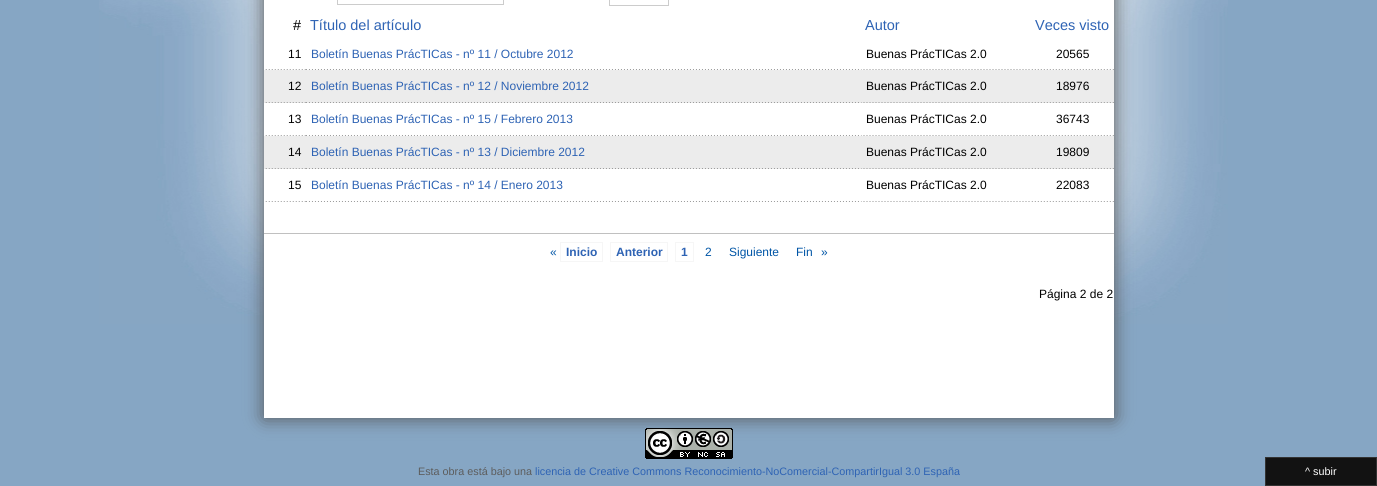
import math
import cairo

surface = cairo.ImageSurface(cairo.FORMAT_RGB24, 1377, 486)
c = cairo.Context(surface)
options = cairo.FontOptions()
options.set_hint_metrics(cairo.HINT_METRICS_OFF)
options.set_hint_style(cairo.HINT_STYLE_NONE)
c.set_font_options(options)
c.set_miter_limit(4)
def C(code):
 c.set_source_rgb(*(v / 255 for v in bytes.fromhex(code[-6:])))
def F(family, size, italic, bold):
 c.select_font_face(family, cairo.FONT_SLANT_ITALIC if italic else cairo.FONT_SLANT_NORMAL, cairo.FONT_WEIGHT_BOLD if bold else cairo.FONT_WEIGHT_NORMAL)
 c.set_font_size(size)
def T(x, y, s):
 c.move_to(x, y)
 c.show_text(s)
def R(x, y, w, h):
 c.rectangle(x, y, w, h)
 c.fill()
def Q(x, y, w, h, r):
 c.new_sub_path()
 for i, (u, v) in enumerate([(x + w - r, y + h - r), (x + r, y + h - r), (x + r, y + r), (x + w - r, y + r)]):
  c.arc(u, v, r, i * math.pi / 2, (i + 1) * math.pi / 2)
 c.close_path()
def S(x, y, w, h, r, blur, alpha):
 c.push_group_with_content(cairo.CONTENT_ALPHA)
 c.set_operator(cairo.OPERATOR_SOURCE)
 for i in range(15, -16, -2):
  e = blur * i / 6
  if min(w, h) + 2 * e > 0:
   c.set_source_rgba(0, 0, 0, alpha * math.erfc((i - 1) / 8.5) / 2)
   Q(x - e, y - e, w + 2 * e, h + 2 * e, max(0, min(r + e + blur * .6, min(w, h) / 2 + e)))
   c.fill()
 c.mask(c.pop_group())
def I(path, x, y, w, h):
 c.save()
 c.set_source_surface(cairo.ImageSurface.create_from_png(path), x, y)
 c.rectangle(x, y, w, h)
 c.fill()
 c.restore()
C('86a6c4')
c.paint()
I('1.png',99,0,1129,324)
C('555555')
S(264,-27,850,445,0,9,1)
C('ffffff')
R(264,0,850,418)
c.rectangle(337.5,-.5,166,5)
C('cccccc')
c.set_line_width(1)
c.stroke()
c.rectangle(609.5,-.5,59,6)
c.stroke()
F('Liberation Sans',14.5,0,0)
C('000000')
T(293,30,'#')
C('2e63b4')
T(310,30,'Título del artículo')
T(865,30,'Autor')
T(1035,30,'Veces visto')
I('2.png',265,69,41,1)
F('Liberation Sans',12,0,0)
C('000000')
T(288,58,'11')
I('3.png',306,69,555,1)
C('2e63b4')
T(311,58,'Boletín Buenas PrácTICas - nº 11 / Octubre 2012')
I('4.png',861,69,169,1)
C('000000')
T(866,58,'Buenas PrácTICas 2.0')
I('5.png',1031,69,83,1)
T(1056,58,'20565')
C('ececec')
R(264,70,850,33)
I('6.png',265,102,41,1)
C('000000')
T(288,90,'12')
I('7.png',306,102,555,1)
C('2e63b4')
T(311,90,'Boletín Buenas PrácTICas - nº 12 / Noviembre 2012')
I('8.png',861,102,169,1)
C('000000')
T(866,90,'Buenas PrácTICas 2.0')
I('9.png',1031,102,83,1)
T(1056,90,'18976')
I('2.png',265,135,41,1)
T(288,123,'13')
I('3.png',306,135,555,1)
C('2e63b4')
T(311,123,'Boletín Buenas PrácTICas - nº 15 / Febrero 2013')
I('4.png',861,135,169,1)
C('000000')
T(866,123,'Buenas PrácTICas 2.0')
I('5.png',1031,135,83,1)
T(1056,123,'36743')
C('ececec')
R(264,136,850,33)
I('6.png',265,168,41,1)
C('000000')
T(288,156,'14')
I('7.png',306,168,555,1)
C('2e63b4')
T(311,156,'Boletín Buenas PrácTICas - nº 13 / Diciembre 2012')
I('8.png',861,168,169,1)
C('000000')
T(866,156,'Buenas PrácTICas 2.0')
I('9.png',1031,168,83,1)
T(1056,156,'19809')
I('2.png',265,201,41,1)
T(288,189,'15')
I('3.png',306,201,555,1)
C('2e63b4')
T(311,189,'Boletín Buenas PrácTICas - nº 14 / Enero 2013')
I('4.png',861,201,169,1)
C('000000')
T(866,189,'Buenas PrácTICas 2.0')
I('5.png',1031,201,83,1)
T(1056,189,'22083')
C('c0c0c0')
R(264,233,850,1)
C('0055a6')
T(550,256,'«')
c.rectangle(560.5,242.5,42,19)
C('f6f6f6')
c.stroke()
F('Liberation Sans',12,0,1)
C('2e63b4')
T(566,256,'Inicio')
c.rectangle(610.5,242.5,57,19)
C('f6f6f6')
c.stroke()
C('2e63b4')
T(616,256,'Anterior')
c.rectangle(675.5,242.5,18,19)
C('f6f6f6')
c.stroke()
C('2e63b4')
T(681,256,'1')
F('Liberation Sans',12,0,0)
C('0055a6')
T(705,256,'2')
T(729,256,'Siguiente')
T(796,256,'Fin')
T(821,256,'»')
C('000000')
T(1039,298,'Página 2 de 2')
I('10.png',645,428,88,31)
F('Liberation Sans',10.8,0,0)
C('5c5c5c')
T(418,475,'Esta obra está bajo una')
C('2e63b4')
T(535,475,'licencia de Creative Commons Reconocimiento-NoComercial-CompartirIgual 3.0 España')
C('121212')
c.rectangle(1265.5,457.5,111,28)
c.fill_preserve()
C('333333')
c.stroke()
C('ffffff')
T(1305,475,'^ subir')
surface.write_to_png('o.png')
